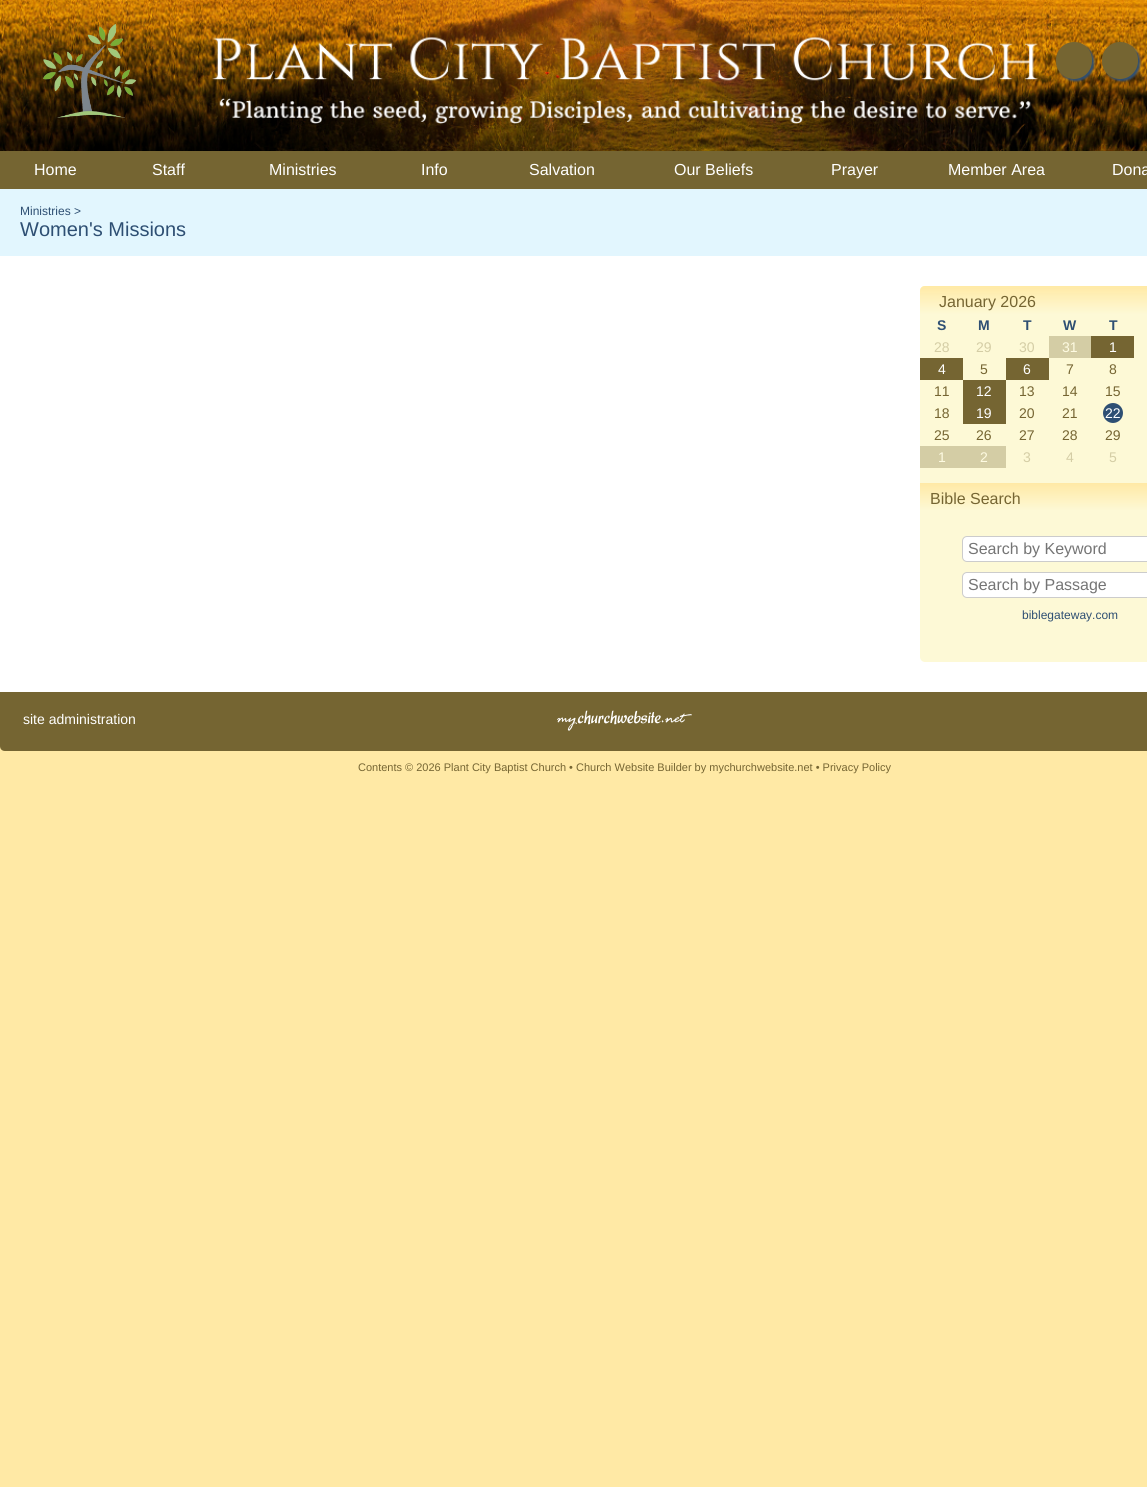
import math
import cairo

surface = cairo.ImageSurface(cairo.FORMAT_RGB24, 1147, 1487)
c = cairo.Context(surface)
options = cairo.FontOptions()
options.set_hint_metrics(cairo.HINT_METRICS_OFF)
options.set_hint_style(cairo.HINT_STYLE_NONE)
c.set_font_options(options)
c.set_miter_limit(4)
def C(code):
 c.set_source_rgb(*(v / 255 for v in bytes.fromhex(code[-6:])))
def F(family, size, italic, bold):
 c.select_font_face(family, cairo.FONT_SLANT_ITALIC if italic else cairo.FONT_SLANT_NORMAL, cairo.FONT_WEIGHT_BOLD if bold else cairo.FONT_WEIGHT_NORMAL)
 c.set_font_size(size)
def T(x, y, s):
 c.move_to(x, y)
 c.show_text(s)
def R(x, y, w, h):
 c.rectangle(x, y, w, h)
 c.fill()
def Q(x, y, w, h, r):
 c.new_sub_path()
 for i, (u, v) in enumerate([(x + w - r, y + h - r), (x + r, y + h - r), (x + r, y + r), (x + w - r, y + r)]):
  c.arc(u, v, r, i * math.pi / 2, (i + 1) * math.pi / 2)
 c.close_path()
def S(x, y, w, h, r, blur, alpha):
 c.push_group_with_content(cairo.CONTENT_ALPHA)
 c.set_operator(cairo.OPERATOR_SOURCE)
 for i in range(15, -16, -2):
  e = blur * i / 6
  if min(w, h) + 2 * e > 0:
   c.set_source_rgba(0, 0, 0, alpha * math.erfc((i - 1) / 8.5) / 2)
   Q(x - e, y - e, w + 2 * e, h + 2 * e, max(0, min(r + e + blur * .6, min(w, h) / 2 + e)))
   c.fill()
 c.mask(c.pop_group())
def I(path, x, y, w, h):
 c.save()
 c.set_source_surface(cairo.ImageSurface.create_from_png(path), x, y)
 c.rectangle(x, y, w, h)
 c.fill()
 c.restore()
C('ffe9a5')
c.paint()
I('1.png',0,0,1147,151)
I('2.png',43,24,94,94)
C('2e4f73')
S(1058,44,36,37,18,1,1)
C('756532')
Q(1056,42,36,37,18)
c.fill()
C('2e4f73')
S(1104,44,36,37,18,1,1)
C('756532')
Q(1102,42,36,37,18)
c.fill()
R(0,151,1147,38)
F('Liberation Sans',16,0,0)
C('ffffff')
T(34,175,'Home')
T(152,175,'Staff')
T(269,175,'Ministries')
T(421,175,'Info')
T(529,175,'Salvation')
T(674,175,'Our Beliefs')
T(831,175,'Prayer')
T(948,175,'Member Area')
T(1112,175,'Dona')
R(0,256,1147,436)
C('e2f6fe')
R(0,189,1147,67)
F('Liberation Sans',12,0,0)
C('2e4f73')
T(20,215,'Ministries >')
F('Liberation Sans',20,0,0)
T(20,236,'Women\'s Missions')
C('fdf9d6')
Q(920,286,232,376,5)
c.fill()
gradient = cairo.LinearGradient(1070,286,1070,314)
gradient.add_color_stop_rgba(0,1,0.914,0.647,1)
gradient.add_color_stop_rgba(1,1,0.914,0.647,.01)
c.set_source(gradient)
c.new_path()
c.move_to(925,286)
c.line_to(1147,286)
c.curve_to(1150,286,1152,288,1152,291)
c.line_to(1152,314)
c.line_to(920,314)
c.line_to(920,291)
c.curve_to(920,288,922,286,925,286)
c.close_path()
c.fill()
F('Liberation Sans',16,0,0)
C('756532')
T(939,307,'January 2026')
F('Liberation Sans',14,0,1)
C('2e4f73')
T(937,330,'S')
T(978,330,'M')
T(1023,330,'T')
T(1063,330,'W')
T(1109,330,'T')
F('Liberation Sans',14,0,0)
C('d4cda5')
T(934,352,'28')
T(976,352,'29')
T(1019,352,'30')
R(1049,336,42,22)
C('fefbe2')
T(1062,352,'31')
C('756532')
R(1091,336,43,22)
C('ffffff')
T(1109,352,'1')
C('756532')
R(920,358,43,22)
C('ffffff')
T(938,374,'4')
C('756532')
T(980,374,'5')
R(1006,358,43,22)
C('ffffff')
T(1023,374,'6')
C('756532')
T(1066,374,'7')
T(1109,374,'8')
T(934,396,'11')
R(963,380,43,44)
C('ffffff')
T(976,396,'12')
C('756532')
T(1019,396,'13')
T(1062,396,'14')
T(1105,396,'15')
T(934,418,'18')
C('ffffff')
T(976,418,'19')
C('756532')
T(1019,418,'20')
T(1062,418,'21')
C('2e4f73')
c.new_path()
c.arc(1113,413,10,0,2 * math.pi)
c.fill()
C('ffffff')
T(1105,418,'22')
C('756532')
T(934,440,'25')
T(976,440,'26')
T(1019,440,'27')
T(1062,440,'28')
T(1105,440,'29')
C('d4cda5')
R(920,446,86,22)
C('fefbe2')
T(938,462,'1')
T(980,462,'2')
C('d4cda5')
T(1023,462,'3')
T(1066,462,'4')
T(1109,462,'5')
gradient = cairo.LinearGradient(1070,483,1070,511)
gradient.add_color_stop_rgba(0,1,0.914,0.647,1)
gradient.add_color_stop_rgba(1,0.992,0.976,0.839,1)
c.set_source(gradient)
R(920,483,227,27)
F('Liberation Sans',16,0,0)
C('756532')
T(930,504,'Bible Search')
C('ffffff')
Q(962.5,536.5,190,25,4.5)
c.fill_preserve()
C('cccccc')
c.set_line_width(1)
c.stroke()
C('757575')
T(968,554,'Search by Keyword')
C('ffffff')
Q(962.5,572.5,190,25,4.5)
c.fill_preserve()
C('cccccc')
c.stroke()
C('757575')
T(968,590,'Search by Passage')
F('Liberation Sans',12,0,0)
C('2e4f73')
T(1022,619,'biblegateway.com')
C('756532')
c.new_path()
c.move_to(0,692)
c.line_to(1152,692)
c.line_to(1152,746)
c.curve_to(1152,749,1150,751,1147,751)
c.line_to(5,751)
c.curve_to(2,751,0,749,0,746)
c.close_path()
c.fill()
F('Liberation Sans',14,0,0)
C('ffffff')
T(23,724,'site administration')
I('3.png',557,710,135,21)
F('Liberation Sans',11,0,0)
C('756532')
T(358,771,'Contents © 2026 Plant City Baptist Church • Church Website Builder by mychurchwebsite.net • Privacy Policy')
surface.write_to_png('o.png')
